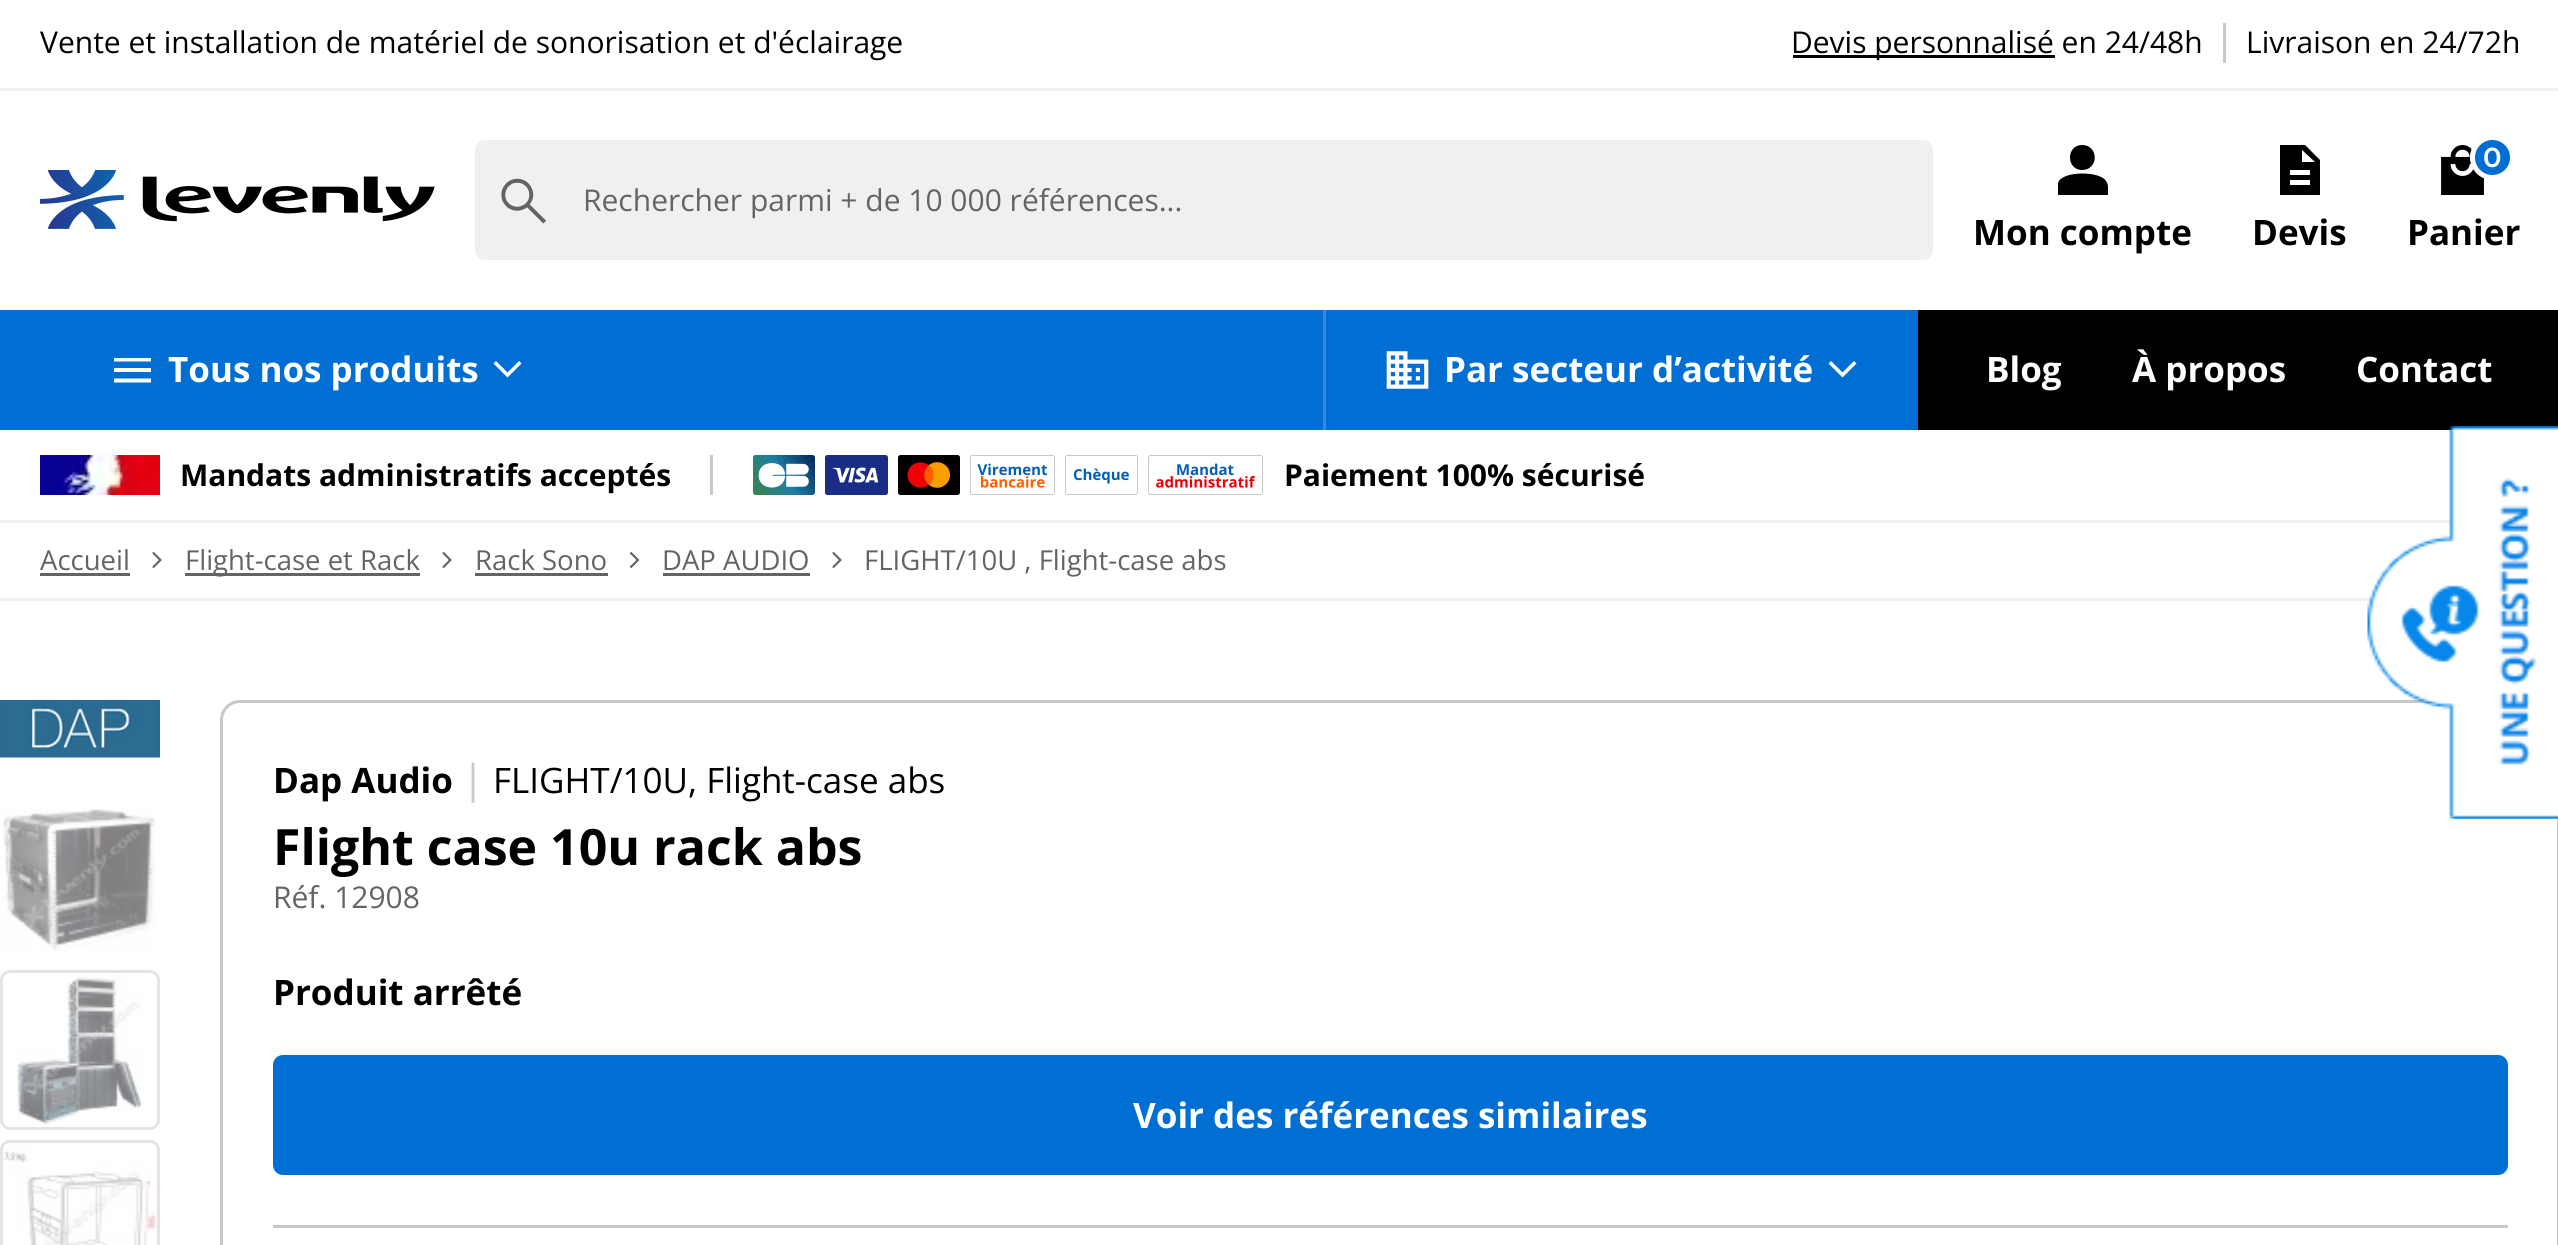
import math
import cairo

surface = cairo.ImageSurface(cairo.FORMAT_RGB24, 2558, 1245)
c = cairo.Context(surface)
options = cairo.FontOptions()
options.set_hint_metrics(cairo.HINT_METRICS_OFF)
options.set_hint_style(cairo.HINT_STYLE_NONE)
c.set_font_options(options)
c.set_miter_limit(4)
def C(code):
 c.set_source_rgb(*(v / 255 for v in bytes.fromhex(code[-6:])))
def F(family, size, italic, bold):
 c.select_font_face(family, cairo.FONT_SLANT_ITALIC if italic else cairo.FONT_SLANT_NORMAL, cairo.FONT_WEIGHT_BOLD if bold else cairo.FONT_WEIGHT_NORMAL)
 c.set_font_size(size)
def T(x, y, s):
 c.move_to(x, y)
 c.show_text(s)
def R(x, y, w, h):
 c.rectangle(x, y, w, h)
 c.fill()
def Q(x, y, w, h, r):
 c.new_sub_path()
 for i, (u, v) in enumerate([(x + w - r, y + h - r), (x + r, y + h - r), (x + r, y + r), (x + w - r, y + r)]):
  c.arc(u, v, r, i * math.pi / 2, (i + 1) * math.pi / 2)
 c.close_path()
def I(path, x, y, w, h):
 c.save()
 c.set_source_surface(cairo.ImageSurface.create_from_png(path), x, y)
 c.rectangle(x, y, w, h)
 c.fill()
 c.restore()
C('ffffff')
c.paint()
C('f0f0f0')
R(0,88,2558,3)
F('Open Sans',30,0,0)
C('000000')
T(40,53,'Vente et installation de matériel de sonorisation et d\'éclairage')
C('c8c8c8')
R(2223,23,3,40)
C('000000')
R(1793,55,262,3)
T(1791,53,'Devis personnalisé en 24/48h')
T(2246,53,'Livraison en 24/72h')
I('1.png',40,170,395,59)
C('f0f0f0')
Q(475,140,1458,120,10)
c.fill()
I('2.png',501,178,45,46)
C('646464')
T(583,211,'Rechercher parmi + de 10 000 références...')
c.save()
c.rectangle(2058,145,50,50)
c.clip()
C('000000')
c.new_path()
c.move_to(2082,170)
c.curve_to(2066,170,2066,145,2082,145)
c.curve_to(2099,145,2099,170,2082,170)
c.close_path()
c.move_to(2058,195)
c.curve_to(2058,191,2056,185,2059,181)
c.curve_to(2065,171,2100,171,2106,181)
c.curve_to(2109,185,2108,191,2108,195)
c.close_path()
c.fill()
c.restore()
F('Open Sans',35,0,1)
C('000000')
T(1973,245,'Mon compte')
c.new_path()
c.move_to(2290,185)
c.line_to(2310,185)
c.line_to(2310,180)
c.line_to(2290,180)
c.close_path()
c.move_to(2290,175)
c.line_to(2310,175)
c.line_to(2310,170)
c.line_to(2290,170)
c.close_path()
c.move_to(2280,195)
c.line_to(2280,145)
c.line_to(2305,145)
c.line_to(2320,160)
c.line_to(2320,195)
c.close_path()
c.move_to(2302,162)
c.line_to(2315,162)
c.line_to(2302,150)
c.close_path()
c.fill()
T(2252,245,'Devis')
I('3.png',2441,145,43,50)
C('006ed2')
c.arc(2492.5,157.5,20,0,2 * math.pi)
c.fill_preserve()
C('ffffff')
c.set_line_width(5)
c.stroke()
F('Montserrat SemiBold',27.5,0,0)
T(2483,167,'0')
F('Open Sans',35,0,1)
C('000000')
T(2407,245,'Panier')
C('006ed2')
R(0,310,1918,120)
c.save()
c.rectangle(113,358,40,25)
c.clip()
C('ffffff')
c.new_path()
c.move_to(114,382.5)
c.line_to(114,378.5)
c.line_to(151,378.5)
c.line_to(151,382.5)
c.close_path()
c.move_to(114,372)
c.line_to(114,368)
c.line_to(151,368)
c.line_to(151,372)
c.close_path()
c.move_to(114,361.5)
c.line_to(114,357.5)
c.line_to(151,357.5)
c.line_to(151,361.5)
c.close_path()
c.fill()
c.restore()
C('ffffff')
T(168,382,'Tous nos produits')
c.new_path()
c.move_to(507.5,377.5)
c.line_to(493.5,363.5)
c.line_to(496,361)
c.line_to(507.5,372.5)
c.line_to(519,361)
c.line_to(521.5,363.5)
c.close_path()
c.fill()
C('338bdb')
R(1323,310,3,120)
I('4.png',1386,351,43,38)
C('ffffff')
T(1444,382,'Par secteur d’activité')
c.new_path()
c.move_to(1842.5,377.5)
c.line_to(1828.5,363.5)
c.line_to(1831,361)
c.line_to(1842.5,372.5)
c.line_to(1854,361)
c.line_to(1856.5,363.5)
c.close_path()
c.fill()
C('000000')
R(1918,310,640,120)
C('ffffff')
T(1986,382,'Blog')
T(2132,382,'À propos')
T(2356,382,'Contact')
C('f0f0f0')
R(0,520,2454,3)
I('5.png',40,455,120,40)
C('c8c8c8')
R(710,455,3,40)
F('Open Sans',30,0,1)
C('000000')
T(180,486,'Mandats administratifs acceptés')
I('6.png',753,455,62,40)
I('7.png',825,455,63,40)
I('8.png',898,455,62,40)
I('9.png',970,455,85,40)
I('10.png',1065,455,73,40)
I('11.png',1148,455,115,40)
T(1284,486,'Paiement 100% sécurisé')
C('f0f0f0')
R(0,598,2374,3)
F('Open Sans',27.5,0,0)
C('646464')
T(40,570,'Accueil')
R(40,573,90,3)
I('12.png',152,551,10,18)
R(185,573,235,3)
T(185,570,'Flight-case et Rack')
I('12.png',442,551,10,18)
T(475,570,'Rack Sono')
R(475,573,133,3)
I('13.png',629,551,11,18)
T(662,570,'DAP AUDIO')
R(663,573,147,3)
I('12.png',832,551,10,18)
T(864,570,'FLIGHT/10U , Flight-case abs')
I('14.png',0,700,160,58)
I('15.png',0,808,156,146)
Q(1.5,971.5,157,157,8.5)
C('e4e4e4')
c.set_line_width(3)
c.stroke()
I('16.png',17,975,126,152)
Q(1.5,1141.5,157,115,8.5)
c.stroke()
I('17.png',4,1145,153,100)
Q(221.5,701.5,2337,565,18.5)
C('c8c8c8')
c.stroke()
F('Open Sans',35,0,1)
C('000000')
T(273,793,'Dap Audio')
F('Open Sans',40,0,0)
C('c8c8c8')
T(462,793,'|')
F('Open Sans',35,0,0)
C('000000')
T(493,793,'FLIGHT/10U, Flight-case abs')
F('Open Sans',50,0,1)
T(273,865,'Flight case 10u rack abs')
F('Open Sans',30,0,0)
C('646464')
T(273,908,'Réf. 12908')
F('Open Sans',35,0,1)
C('000000')
T(273,1005,'Produit arrêté')
C('006ed2')
Q(273,1055,2235,120,10)
c.fill()
C('ffffff')
T(1133,1128,'Voir des références similaires')
C('c8c8c8')
R(273,1225,2235,3)
I('18.png',2367,426,191,393)
surface.write_to_png('o.png')
